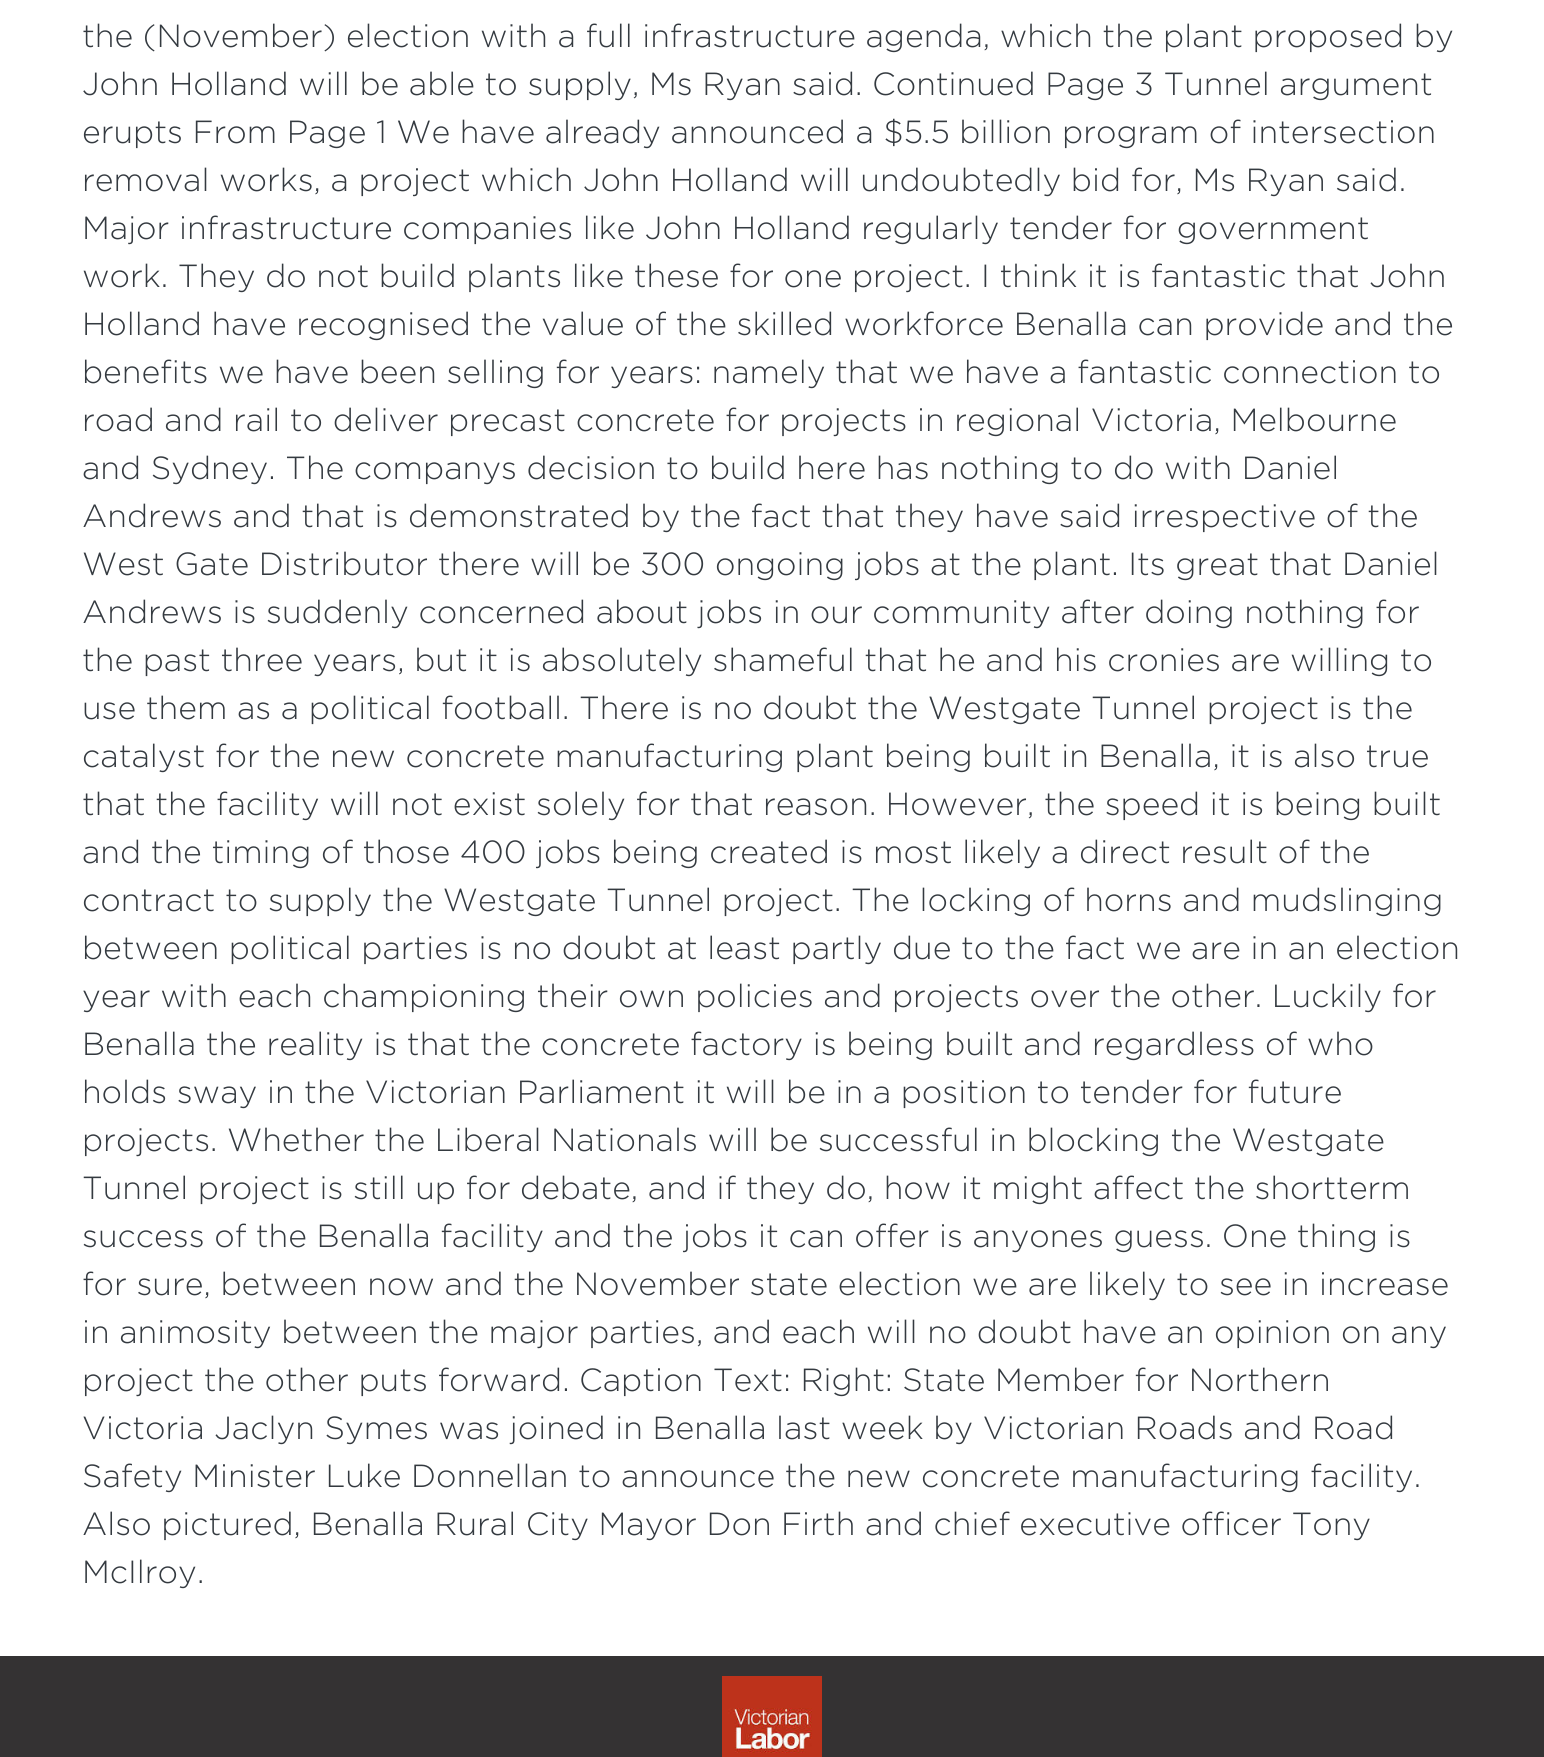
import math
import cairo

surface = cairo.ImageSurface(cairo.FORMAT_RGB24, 1544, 1757)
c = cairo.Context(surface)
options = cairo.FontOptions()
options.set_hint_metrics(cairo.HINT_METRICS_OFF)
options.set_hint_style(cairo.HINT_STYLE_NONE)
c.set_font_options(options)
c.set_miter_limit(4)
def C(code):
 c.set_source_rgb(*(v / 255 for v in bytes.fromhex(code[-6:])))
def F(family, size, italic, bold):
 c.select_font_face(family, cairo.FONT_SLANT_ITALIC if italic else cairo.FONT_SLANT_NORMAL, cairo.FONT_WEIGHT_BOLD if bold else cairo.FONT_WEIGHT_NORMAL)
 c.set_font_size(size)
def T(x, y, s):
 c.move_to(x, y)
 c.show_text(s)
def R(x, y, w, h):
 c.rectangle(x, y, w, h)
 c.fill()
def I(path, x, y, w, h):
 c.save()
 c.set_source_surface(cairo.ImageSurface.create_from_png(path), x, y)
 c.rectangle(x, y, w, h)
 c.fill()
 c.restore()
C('ffffff')
c.paint()
F('Gotham Light',32,0,0)
C('343a40')
T(82,47,'the (November) election with a full infrastructure agenda, which the plant proposed by')
T(82,95,'John Holland will be able to supply, Ms Ryan said. Continued Page 3 Tunnel argument')
T(82,143,'erupts From Page 1 We have already announced a $5.5 billion program of intersection')
T(82,191,'removal works, a project which John Holland will undoubtedly bid for, Ms Ryan said.')
T(82,239,'Major infrastructure companies like John Holland regularly tender for government')
T(82,287,'work. They do not build plants like these for one project. I think it is fantastic that John')
T(82,335,'Holland have recognised the value of the skilled workforce Benalla can provide and the')
T(82,383,'benefits we have been selling for years: namely that we have a fantastic connection to')
T(82,431,'road and rail to deliver precast concrete for projects in regional Victoria, Melbourne')
T(82,479,'and Sydney. The companys decision to build here has nothing to do with Daniel')
T(82,527,'Andrews and that is demonstrated by the fact that they have said irrespective of the')
T(82,575,'West Gate Distributor there will be 300 ongoing jobs at the plant. Its great that Daniel')
T(82,623,'Andrews is suddenly concerned about jobs in our community after doing nothing for')
T(82,671,'the past three years, but it is absolutely shameful that he and his cronies are willing to')
T(82,719,'use them as a political football. There is no doubt the Westgate Tunnel project is the')
T(82,767,'catalyst for the new concrete manufacturing plant being built in Benalla, it is also true')
T(82,815,'that the facility will not exist solely for that reason. However, the speed it is being built')
T(82,863,'and the timing of those 400 jobs being created is most likely a direct result of the')
T(82,911,'contract to supply the Westgate Tunnel project. The locking of horns and mudslinging')
T(82,959,'between political parties is no doubt at least partly due to the fact we are in an election')
T(82,1007,'year with each championing their own policies and projects over the other. Luckily for')
T(82,1055,'Benalla the reality is that the concrete factory is being built and regardless of who')
T(82,1103,'holds sway in the Victorian Parliament it will be in a position to tender for future')
T(82,1151,'projects. Whether the Liberal Nationals will be successful in blocking the Westgate')
T(82,1199,'Tunnel project is still up for debate, and if they do, how it might affect the shortterm')
T(82,1247,'success of the Benalla facility and the jobs it can offer is anyones guess. One thing is')
T(82,1295,'for sure, between now and the November state election we are likely to see in increase')
T(82,1343,'in animosity between the major parties, and each will no doubt have an opinion on any')
T(82,1391,'project the other puts forward. Caption Text: Right: State Member for Northern')
T(82,1439,'Victoria Jaclyn Symes was joined in Benalla last week by Victorian Roads and Road')
T(82,1487,'Safety Minister Luke Donnellan to announce the new concrete manufacturing facility.')
T(82,1535,'Also pictured, Benalla Rural City Mayor Don Firth and chief executive officer Tony')
T(82,1583,'McIlroy.')
C('343233')
R(0,1656,1544,101)
I('1.png',722,1676,100,81)
surface.write_to_png('o.png')
